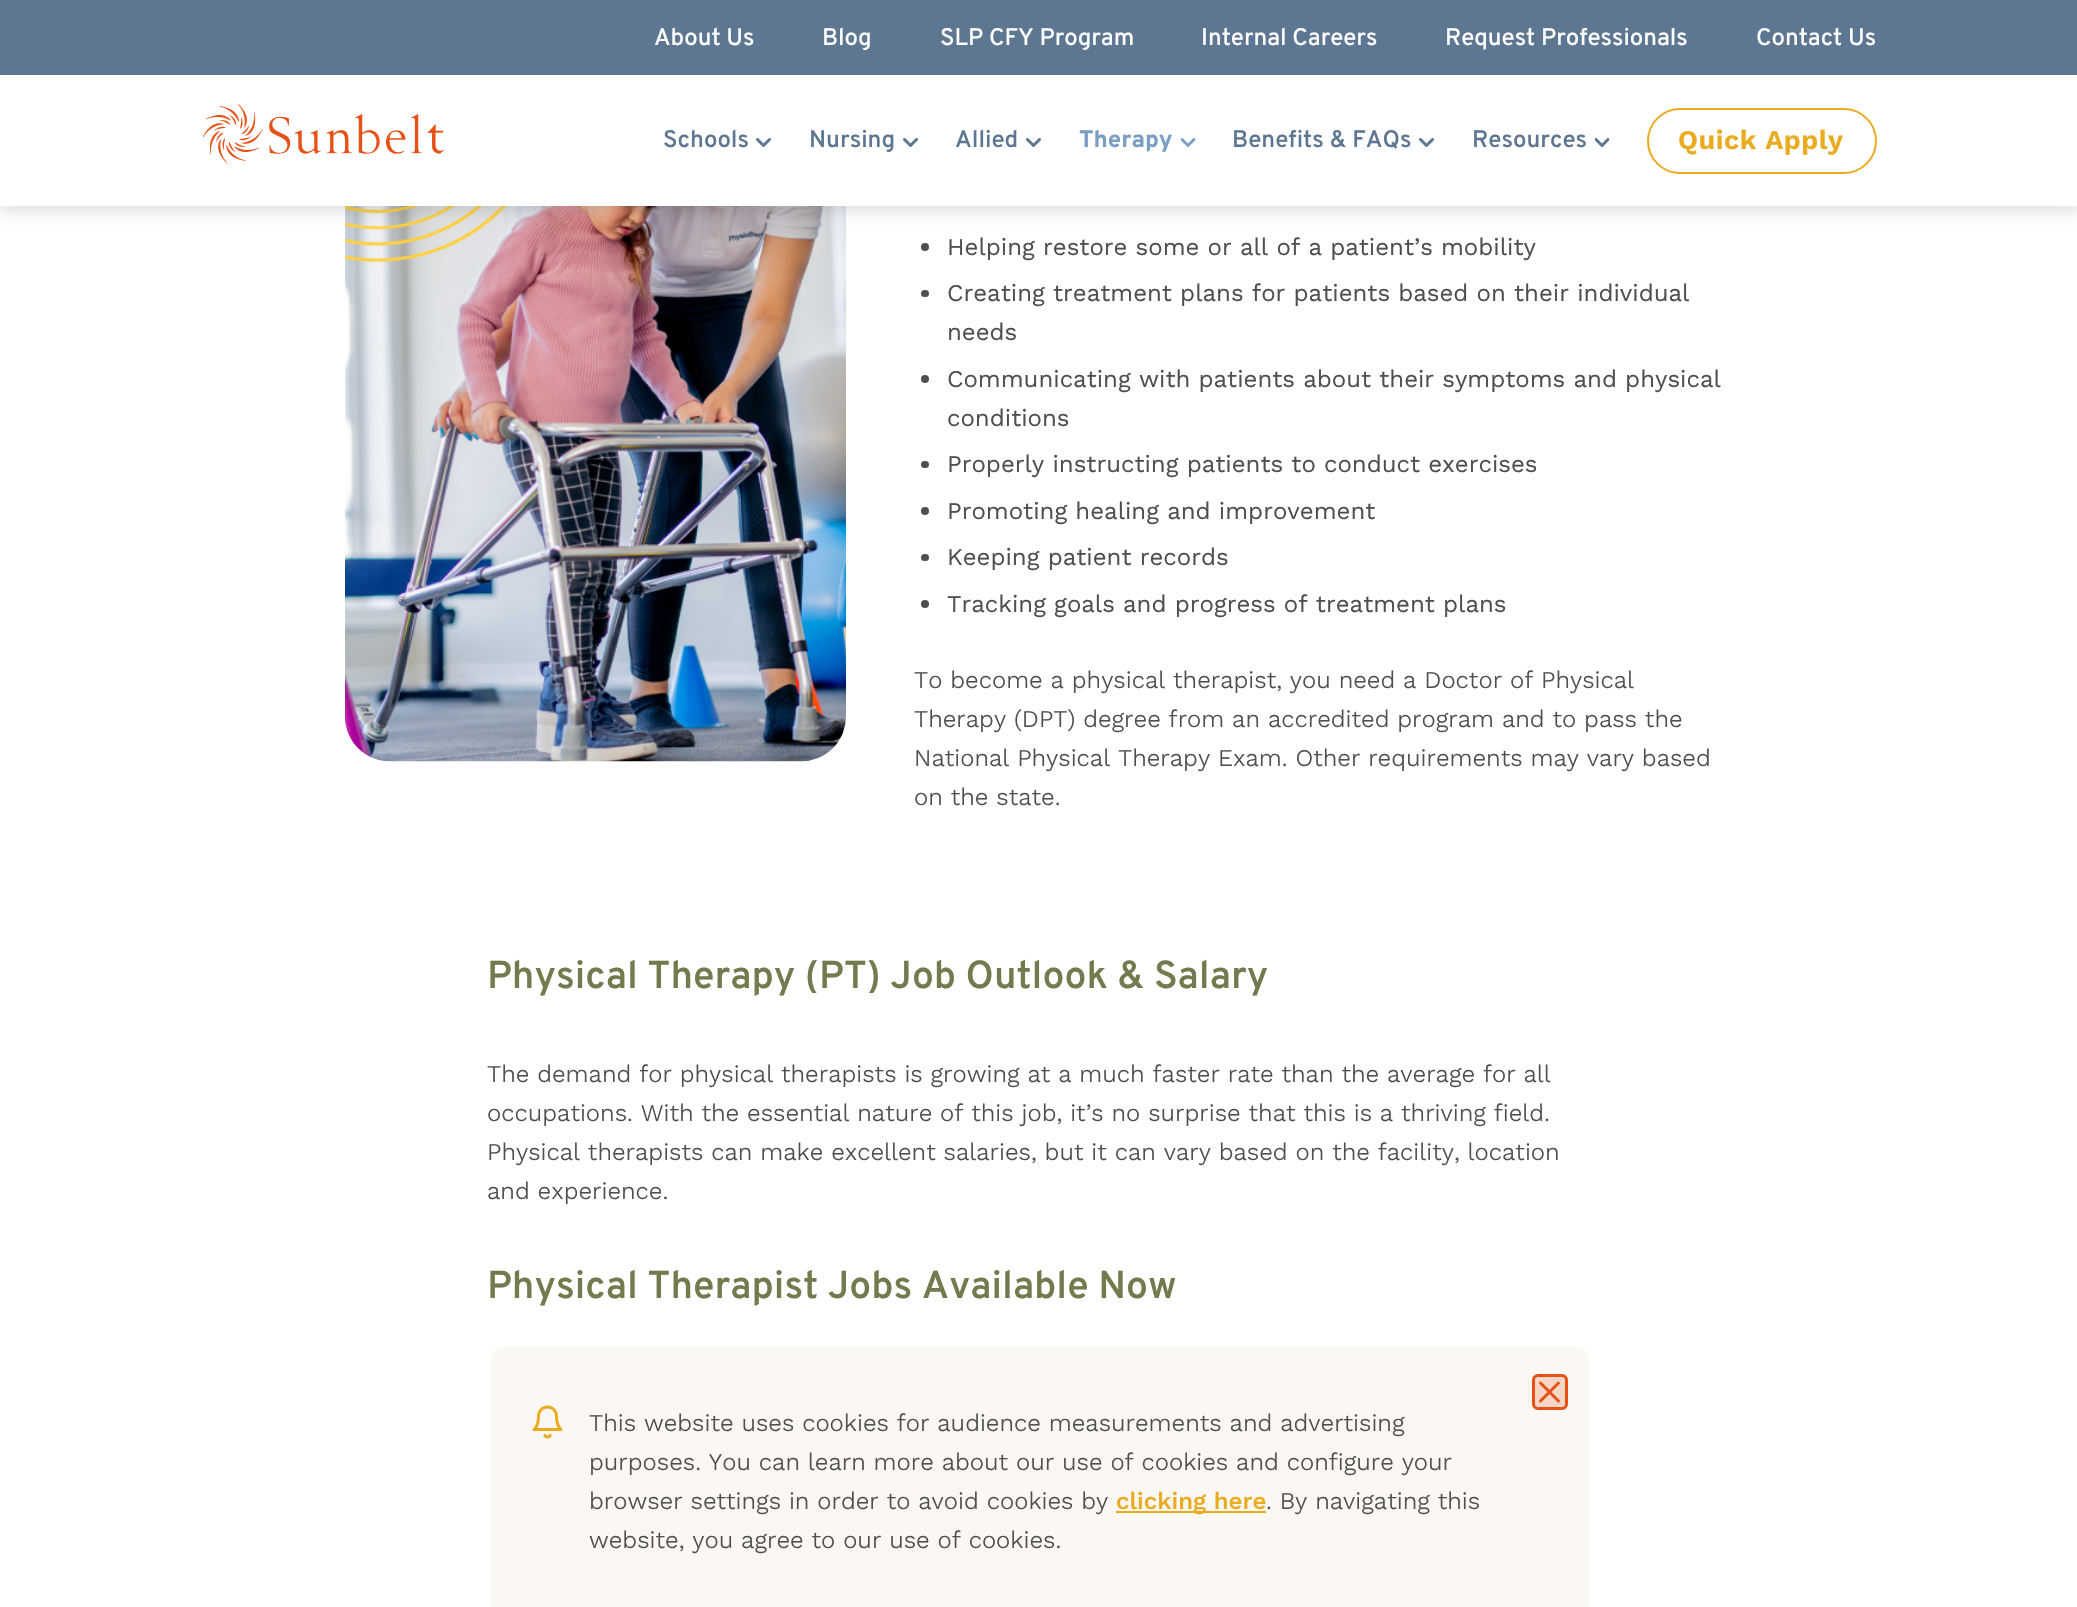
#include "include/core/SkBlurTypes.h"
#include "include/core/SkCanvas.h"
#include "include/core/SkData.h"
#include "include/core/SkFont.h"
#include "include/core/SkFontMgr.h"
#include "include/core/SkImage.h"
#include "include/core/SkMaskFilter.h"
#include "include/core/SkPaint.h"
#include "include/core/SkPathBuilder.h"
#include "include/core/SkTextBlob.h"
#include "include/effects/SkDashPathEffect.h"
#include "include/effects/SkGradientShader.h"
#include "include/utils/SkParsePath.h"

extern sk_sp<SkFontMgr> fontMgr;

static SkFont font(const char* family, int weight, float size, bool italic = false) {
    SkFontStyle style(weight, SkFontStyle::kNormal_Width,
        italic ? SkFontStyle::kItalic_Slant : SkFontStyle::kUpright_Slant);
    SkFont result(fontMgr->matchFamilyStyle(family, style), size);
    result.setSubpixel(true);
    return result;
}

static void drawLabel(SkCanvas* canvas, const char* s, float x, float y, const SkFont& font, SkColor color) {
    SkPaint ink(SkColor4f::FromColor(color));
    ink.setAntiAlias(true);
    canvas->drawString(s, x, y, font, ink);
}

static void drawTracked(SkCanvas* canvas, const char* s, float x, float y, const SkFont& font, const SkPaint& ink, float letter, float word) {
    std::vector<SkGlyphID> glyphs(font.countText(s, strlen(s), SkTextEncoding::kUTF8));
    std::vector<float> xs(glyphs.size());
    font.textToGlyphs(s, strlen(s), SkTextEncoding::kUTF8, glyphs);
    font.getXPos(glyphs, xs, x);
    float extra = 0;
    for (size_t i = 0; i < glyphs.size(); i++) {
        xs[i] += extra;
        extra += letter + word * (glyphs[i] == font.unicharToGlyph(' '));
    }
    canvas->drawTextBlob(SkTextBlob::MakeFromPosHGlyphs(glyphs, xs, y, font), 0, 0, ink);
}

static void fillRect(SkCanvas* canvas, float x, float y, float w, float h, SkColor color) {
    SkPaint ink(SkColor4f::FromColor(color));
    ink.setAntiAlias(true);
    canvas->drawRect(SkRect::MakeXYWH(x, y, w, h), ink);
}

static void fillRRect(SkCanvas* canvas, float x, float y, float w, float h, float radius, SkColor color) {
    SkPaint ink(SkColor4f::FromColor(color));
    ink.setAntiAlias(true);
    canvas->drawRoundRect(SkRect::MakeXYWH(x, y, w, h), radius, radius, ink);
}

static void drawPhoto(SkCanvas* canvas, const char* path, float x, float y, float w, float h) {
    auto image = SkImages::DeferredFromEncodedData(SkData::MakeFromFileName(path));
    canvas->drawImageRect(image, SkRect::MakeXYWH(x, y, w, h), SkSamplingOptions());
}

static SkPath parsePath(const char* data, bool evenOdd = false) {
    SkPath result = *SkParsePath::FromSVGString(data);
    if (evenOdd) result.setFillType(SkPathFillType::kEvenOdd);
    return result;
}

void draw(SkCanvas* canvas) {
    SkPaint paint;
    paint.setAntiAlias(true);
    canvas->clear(0xFFFFFFFF);
    fillRect(canvas, 0, 0, 2077, 75, 0xFF5D7692);
    SkFont font1 = font("Overpass", 500, 24);
    drawLabel(canvas, "About Us", 654, 45, font1, 0xFFFFFFFF);
    drawLabel(canvas, "Blog", 822, 45, font1, 0xFFFFFFFF);
    drawLabel(canvas, "SLP CFY Program", 940, 45, font1, 0xFFFFFFFF);
    drawLabel(canvas, "Internal Careers", 1201, 45, font1, 0xFFFFFFFF);
    drawLabel(canvas, "Request Professionals", 1445, 45, font1, 0xFFFFFFFF);
    drawLabel(canvas, "Contact Us", 1756, 45, font1, 0xFFFFFFFF);
    drawPhoto(canvas, "assets/img5.png", 345, 206, 501, 556);
    paint.setColor(0x1A000000);
    paint.setMaskFilter(SkMaskFilter::MakeBlur(kNormal_SkBlurStyle, 6));
    canvas->drawRect(SkRect::MakeXYWH(0, 83, 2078, 130), paint);
    paint.setMaskFilter(nullptr);
    fillRect(canvas, 0, 75, 2077, 131, 0xFFFFFFFF);
    drawPhoto(canvas, "assets/img1.png", 203, 104, 241, 60);
    SkFont font2 = font("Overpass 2", 500, 24);
    drawLabel(canvas, "Schools", 663, 147, font2, 0xFF5D7692);
    drawPhoto(canvas, "assets/img2.png", 756, 138, 15, 9);
    drawLabel(canvas, "Nursing", 809, 147, font2, 0xFF5D7692);
    drawPhoto(canvas, "assets/img2.png", 903, 138, 15, 9);
    drawLabel(canvas, "Allied", 955, 147, font2, 0xFF5D7692);
    drawPhoto(canvas, "assets/img2.png", 1026, 138, 15, 9);
    SkFont font3 = font("Overpass", 700, 24);
    drawLabel(canvas, "Therapy", 1079, 147, font3, 0xFF7B9FC3);
    drawPhoto(canvas, "assets/img3.png", 1181, 138, 15, 9);
    drawLabel(canvas, "Benefits & FAQs", 1232, 147, font2, 0xFF5D7692);
    drawPhoto(canvas, "assets/img2.png", 1419, 138, 15, 9);
    drawLabel(canvas, "Resources", 1472, 147, font2, 0xFF5D7692);
    drawPhoto(canvas, "assets/img4.png", 1595, 138, 15, 9);
    paint.setStroke(true);
    paint.setStrokeWidth(2);
    paint.setColor(0xFFEBAB21);
    canvas->drawRoundRect(SkRect::MakeXYWH(1648, 109, 228, 64), 32, 32, paint);
    SkFont font4 = font("Work Sans", 600, 27);
    paint.setStroke(false);
    drawTracked(canvas, "Quick Apply", 1678, 149, font4, paint, 0.5f, 0);
    paint.setColor(0xFF4F4F4F);
    canvas->drawCircle(925, 247, 4, paint);
    SkFont font5 = font("Work Sans", 400, 24);
    drawLabel(canvas, "Helping restore some or all of a patient’s mobility", 947, 255, font5, 0xFF4F4F4F);
    fillRRect(canvas, 921, 290, 8, 7, 3.5f, 0xFF4F4F4F);
    drawLabel(canvas, "Creating treatment plans for patients based on their individual", 947, 301, font5, 0xFF4F4F4F);
    drawLabel(canvas, "needs", 947, 340, font5, 0xFF4F4F4F);
    canvas->drawCircle(925, 379, 4, paint);
    drawLabel(canvas, "Communicating with patients about their symptoms and physical", 947, 387, font5, 0xFF4F4F4F);
    drawLabel(canvas, "conditions", 947, 426, font5, 0xFF4F4F4F);
    fillRRect(canvas, 921, 461, 8, 7, 3.5f, 0xFF4F4F4F);
    drawLabel(canvas, "Properly instructing patients to conduct exercises", 947, 472, font5, 0xFF4F4F4F);
    canvas->drawCircle(925, 511, 4, paint);
    drawLabel(canvas, "Promoting healing and improvement", 947, 519, font5, 0xFF4F4F4F);
    fillRRect(canvas, 921, 554, 8, 7, 3.5f, 0xFF4F4F4F);
    drawLabel(canvas, "Keeping patient records", 947, 565, font5, 0xFF4F4F4F);
    canvas->drawCircle(925, 604, 4, paint);
    drawLabel(canvas, "Tracking goals and progress of treatment plans", 947, 612, font5, 0xFF4F4F4F);
    SkFont font6 = font("Work Sans", 300, 24);
    drawLabel(canvas, "To become a physical therapist, you need a Doctor of Physical", 914, 688, font6, 0xFF4F4F4F);
    drawLabel(canvas, "Therapy (DPT) degree from an accredited program and to pass the", 914, 727, font6, 0xFF4F4F4F);
    drawLabel(canvas, "National Physical Therapy Exam. Other requirements may vary based", 914, 766, font6, 0xFF4F4F4F);
    drawLabel(canvas, "on the state.", 914, 805, font6, 0xFF4F4F4F);
    SkFont font7 = font("Overpass", 600, 39);
    drawLabel(canvas, "Physical Therapy (PT) Job Outlook & Salary", 487, 988, font7, 0xFF747A4D);
    drawLabel(canvas, "The demand for physical therapists is growing at a much faster rate than the average for all", 487, 1082, font6, 0xFF4F4F4F);
    drawLabel(canvas, "occupations. With the essential nature of this job, it’s no surprise that this is a thriving field.", 487, 1121, font6, 0xFF4F4F4F);
    drawLabel(canvas, "Physical therapists can make excellent salaries, but it can vary based on the facility, location", 487, 1160, font6, 0xFF4F4F4F);
    drawLabel(canvas, "and experience.", 487, 1199, font6, 0xFF4F4F4F);
    drawLabel(canvas, "Physical Therapist Jobs Available Now", 487, 1298, font7, 0xFF747A4D);
    paint.setColor(0xFFFBF7F2);
    canvas->drawPath(parsePath("M503 1347H1577C1583.5 1347 1589 1352.5 1589 1359V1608H491V1359C491 1352.5 496.5 1347 503 1347Z"), paint);
    paint.setColor(0xFFF7D6C6);
    canvas->drawRoundRect(SkRect::MakeXYWH(1533.5f, 1375.5f, 33, 33), 4.5f, 4.5f, paint);
    paint.setStroke(true);
    paint.setStrokeWidth(3);
    paint.setColor(0xFFE85116);
    canvas->drawRoundRect(SkRect::MakeXYWH(1533.5f, 1375.5f, 33, 33), 4.5f, 4.5f, paint);
    paint.setStrokeCap(SkPaint::kRound_Cap);
    paint.setStrokeJoin(SkPaint::kRound_Join);
    canvas->drawPath(parsePath("M1558.5 1383L1540.5 1401M1540.5 1383L1558.5 1401"), paint);
    drawPhoto(canvas, "assets/img6.png", 532, 1405, 31, 34);
    drawLabel(canvas, "This website uses cookies for audience measurements and advertising", 589, 1431, font6, 0xFF4F4F4F);
    drawLabel(canvas, "purposes. You can learn more about our use of cookies and configure your", 589, 1470, font6, 0xFF4F4F4F);
    drawLabel(canvas, "browser settings in order to avoid cookies by", 589, 1509, font6, 0xFF4F4F4F);
    fillRect(canvas, 1116, 1511, 150, 2, 0xFFEBAB21);
    SkFont font8 = font("Work Sans", 500, 24);
    drawLabel(canvas, "clicking here", 1116, 1509, font8, 0xFFEBAB21);
    drawLabel(canvas, ". By navigating this", 1266, 1509, font6, 0xFF4F4F4F);
    drawLabel(canvas, "website, you agree to our use of cookies.", 589, 1548, font6, 0xFF4F4F4F);
}
